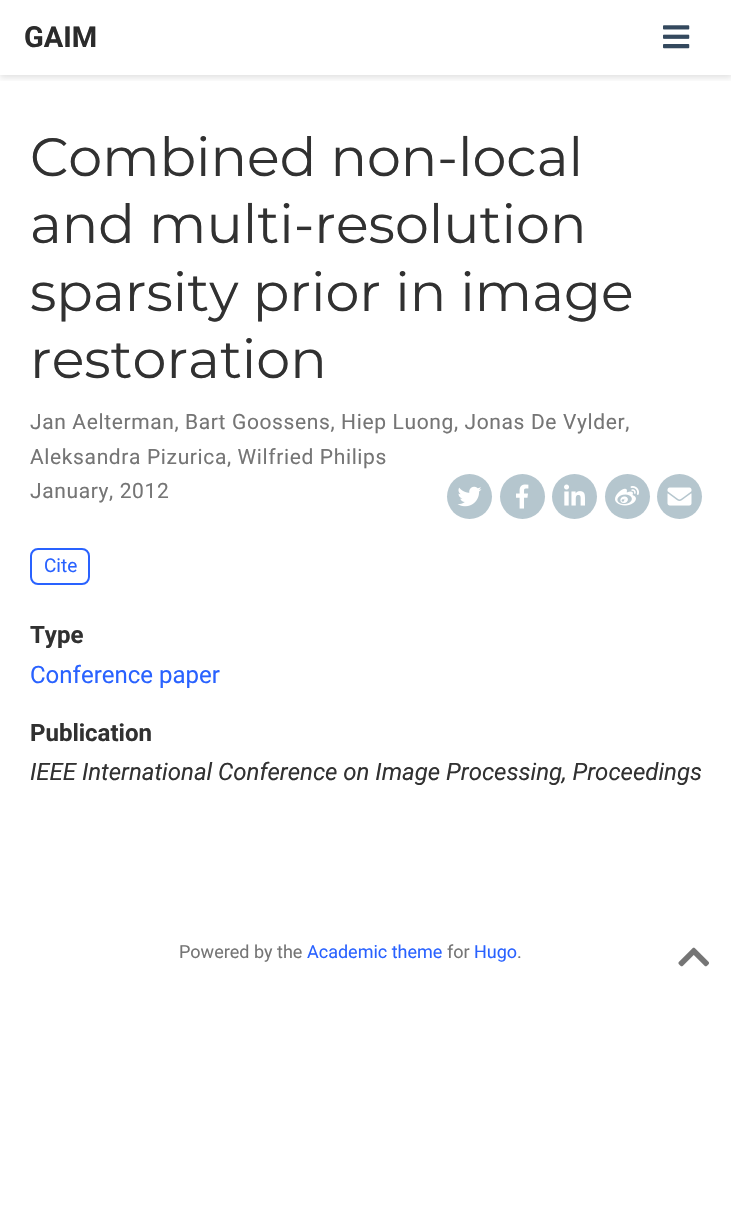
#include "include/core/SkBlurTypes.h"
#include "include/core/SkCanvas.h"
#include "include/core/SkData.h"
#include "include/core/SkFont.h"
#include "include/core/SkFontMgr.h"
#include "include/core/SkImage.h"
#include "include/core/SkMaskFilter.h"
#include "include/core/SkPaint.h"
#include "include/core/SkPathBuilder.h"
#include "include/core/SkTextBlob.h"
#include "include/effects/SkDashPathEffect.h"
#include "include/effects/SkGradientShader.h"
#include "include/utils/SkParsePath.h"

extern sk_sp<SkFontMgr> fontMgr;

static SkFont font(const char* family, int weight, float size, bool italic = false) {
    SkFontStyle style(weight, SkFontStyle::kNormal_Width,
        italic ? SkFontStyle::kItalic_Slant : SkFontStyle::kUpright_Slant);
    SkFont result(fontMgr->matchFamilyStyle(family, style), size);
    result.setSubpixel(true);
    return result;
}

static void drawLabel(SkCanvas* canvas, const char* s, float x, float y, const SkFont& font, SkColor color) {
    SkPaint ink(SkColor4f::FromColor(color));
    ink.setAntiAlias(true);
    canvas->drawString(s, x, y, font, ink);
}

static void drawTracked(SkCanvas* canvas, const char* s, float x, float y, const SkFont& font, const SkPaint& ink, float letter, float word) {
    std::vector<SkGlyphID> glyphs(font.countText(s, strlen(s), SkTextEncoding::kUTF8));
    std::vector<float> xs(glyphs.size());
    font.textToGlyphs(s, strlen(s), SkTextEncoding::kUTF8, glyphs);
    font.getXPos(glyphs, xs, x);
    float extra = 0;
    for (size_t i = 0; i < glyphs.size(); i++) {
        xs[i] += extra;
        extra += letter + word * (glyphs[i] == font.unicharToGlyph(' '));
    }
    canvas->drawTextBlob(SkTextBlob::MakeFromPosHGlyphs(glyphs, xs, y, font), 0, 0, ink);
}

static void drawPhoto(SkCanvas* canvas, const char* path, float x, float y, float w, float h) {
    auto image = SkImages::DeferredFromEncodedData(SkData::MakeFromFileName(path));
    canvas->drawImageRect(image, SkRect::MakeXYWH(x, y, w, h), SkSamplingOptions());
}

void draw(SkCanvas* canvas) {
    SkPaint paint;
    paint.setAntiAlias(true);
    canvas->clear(0xFFFFFFFF);
    canvas->save();
    canvas->clipRect(SkRect::MakeXYWH(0, 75, 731, 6));
    paint.setColor(0x1C000000);
    paint.setMaskFilter(SkMaskFilter::MakeBlur(kNormal_SkBlurStyle, 3));
    canvas->drawRect(SkRect::MakeXYWH(0, 3, 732, 75), paint);
    paint.setMaskFilter(nullptr);
    canvas->restore();
    SkFont font1 = font("Roboto", 700, 29);
    drawLabel(canvas, "GAIM", 24, 47, font1, 0xFF2B2B2B);
    drawPhoto(canvas, "assets/img1.png", 663, 25, 27, 24);
    SkFont font2 = font("Montserrat", 400, 54);
    drawLabel(canvas, "Combined non-local", 30, 176, font2, 0xFF313131);
    drawLabel(canvas, "and multi-resolution", 30, 243, font2, 0xFF313131);
    drawLabel(canvas, "sparsity prior in image", 30, 311, font2, 0xFF313131);
    drawLabel(canvas, "restoration", 30, 378, font2, 0xFF313131);
    SkFont font3 = font("Roboto", 400, 21);
    paint.setColor(0xFF757575);
    drawTracked(canvas, "Jan Aelterman, Bart Goossens, Hiep Luong, Jonas De Vylder,", 30, 429, font3, paint, 0.63f, 0);
    drawTracked(canvas, "Aleksandra Pizurica, Wilfried Philips", 30, 464, font3, paint, 0.63f, 0);
    drawTracked(canvas, "January, 2012", 30, 498, font3, paint, 0.63f, 0);
    paint.setColor(0xFFB5C6CE);
    canvas->drawCircle(469.5f, 496.5f, 22.5f, paint);
    drawPhoto(canvas, "assets/img2.png", 457, 486, 25, 21);
    canvas->drawCircle(522.5f, 496.5f, 22.5f, paint);
    drawPhoto(canvas, "assets/img3.png", 516, 484, 13, 25);
    canvas->drawCircle(574.5f, 496.5f, 22.5f, paint);
    drawPhoto(canvas, "assets/img4.png", 564, 484, 21, 22);
    canvas->drawCircle(627.5f, 496.5f, 22.5f, paint);
    drawPhoto(canvas, "assets/img5.png", 615, 486, 24, 20);
    canvas->drawCircle(679.5f, 496.5f, 22.5f, paint);
    drawPhoto(canvas, "assets/img6.png", 667, 487, 25, 19);
    paint.setStroke(true);
    paint.setStrokeWidth(2);
    paint.setColor(0xFF2962FF);
    canvas->drawRoundRect(SkRect::MakeXYWH(31, 549, 58, 35), 7, 7, paint);
    SkFont font4 = font("Roboto", 400, 19);
    drawLabel(canvas, "Cite", 44, 572, font4, 0xFF2962FF);
    SkFont font5 = font("Roboto", 700, 24);
    drawLabel(canvas, "Type", 30, 643, font5, 0xFF313131);
    SkFont font6 = font("Roboto", 400, 24);
    drawLabel(canvas, "Conference paper", 30, 683, font6, 0xFF2962FF);
    drawLabel(canvas, "Publication", 30, 741, font5, 0xFF313131);
    SkFont font7 = font("Roboto", 400, 24, true);
    drawLabel(canvas, "IEEE International Conference on Image Processing, Proceedings", 30, 780, font7, 0xFF313131);
    SkFont font8 = font("Roboto", 400, 18);
    drawLabel(canvas, "Powered by the", 179, 958, font8, 0xFF757575);
    drawLabel(canvas, "Academic theme", 307, 958, font8, 0xFF2962FF);
    drawLabel(canvas, "for", 447, 958, font8, 0xFF757575);
    drawLabel(canvas, "Hugo", 474, 958, font8, 0xFF2962FF);
    drawLabel(canvas, ".", 517, 958, font8, 0xFF757575);
    drawPhoto(canvas, "assets/img7.png", 678, 947, 31, 20);
}
